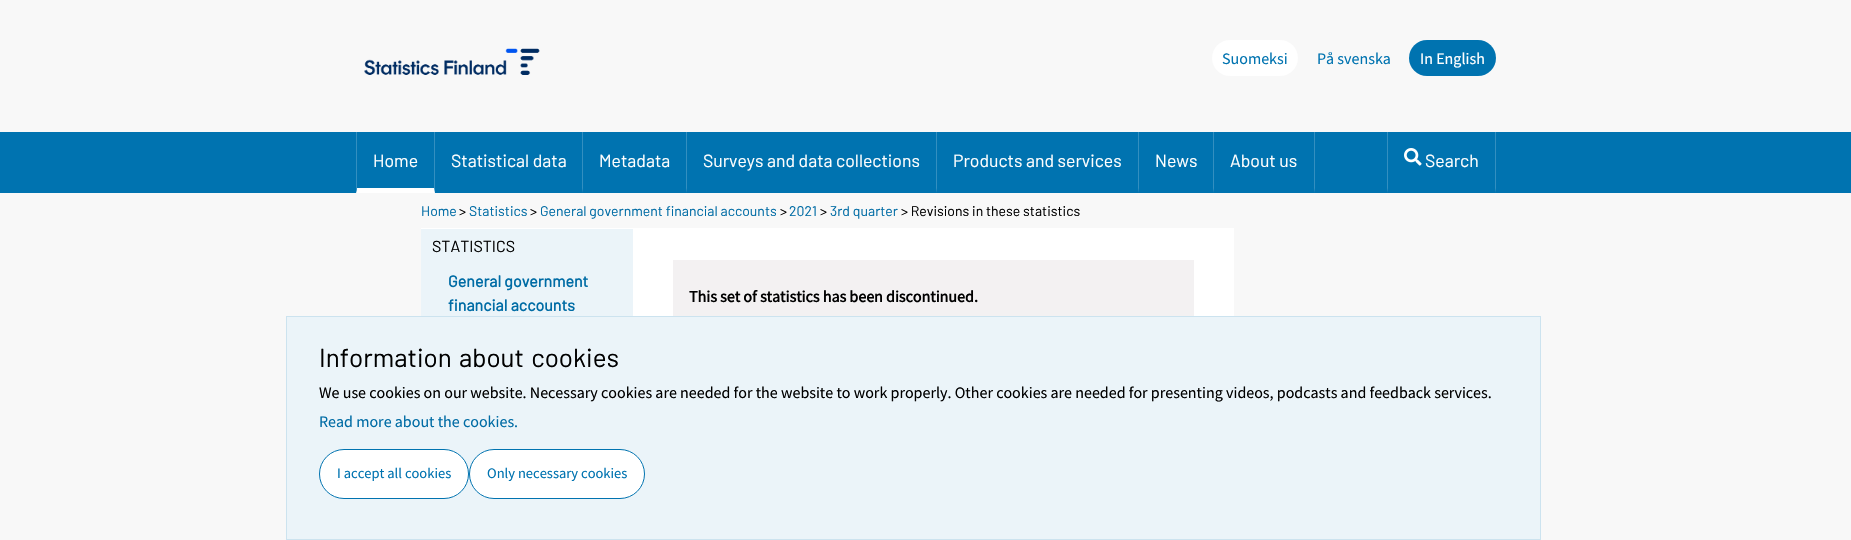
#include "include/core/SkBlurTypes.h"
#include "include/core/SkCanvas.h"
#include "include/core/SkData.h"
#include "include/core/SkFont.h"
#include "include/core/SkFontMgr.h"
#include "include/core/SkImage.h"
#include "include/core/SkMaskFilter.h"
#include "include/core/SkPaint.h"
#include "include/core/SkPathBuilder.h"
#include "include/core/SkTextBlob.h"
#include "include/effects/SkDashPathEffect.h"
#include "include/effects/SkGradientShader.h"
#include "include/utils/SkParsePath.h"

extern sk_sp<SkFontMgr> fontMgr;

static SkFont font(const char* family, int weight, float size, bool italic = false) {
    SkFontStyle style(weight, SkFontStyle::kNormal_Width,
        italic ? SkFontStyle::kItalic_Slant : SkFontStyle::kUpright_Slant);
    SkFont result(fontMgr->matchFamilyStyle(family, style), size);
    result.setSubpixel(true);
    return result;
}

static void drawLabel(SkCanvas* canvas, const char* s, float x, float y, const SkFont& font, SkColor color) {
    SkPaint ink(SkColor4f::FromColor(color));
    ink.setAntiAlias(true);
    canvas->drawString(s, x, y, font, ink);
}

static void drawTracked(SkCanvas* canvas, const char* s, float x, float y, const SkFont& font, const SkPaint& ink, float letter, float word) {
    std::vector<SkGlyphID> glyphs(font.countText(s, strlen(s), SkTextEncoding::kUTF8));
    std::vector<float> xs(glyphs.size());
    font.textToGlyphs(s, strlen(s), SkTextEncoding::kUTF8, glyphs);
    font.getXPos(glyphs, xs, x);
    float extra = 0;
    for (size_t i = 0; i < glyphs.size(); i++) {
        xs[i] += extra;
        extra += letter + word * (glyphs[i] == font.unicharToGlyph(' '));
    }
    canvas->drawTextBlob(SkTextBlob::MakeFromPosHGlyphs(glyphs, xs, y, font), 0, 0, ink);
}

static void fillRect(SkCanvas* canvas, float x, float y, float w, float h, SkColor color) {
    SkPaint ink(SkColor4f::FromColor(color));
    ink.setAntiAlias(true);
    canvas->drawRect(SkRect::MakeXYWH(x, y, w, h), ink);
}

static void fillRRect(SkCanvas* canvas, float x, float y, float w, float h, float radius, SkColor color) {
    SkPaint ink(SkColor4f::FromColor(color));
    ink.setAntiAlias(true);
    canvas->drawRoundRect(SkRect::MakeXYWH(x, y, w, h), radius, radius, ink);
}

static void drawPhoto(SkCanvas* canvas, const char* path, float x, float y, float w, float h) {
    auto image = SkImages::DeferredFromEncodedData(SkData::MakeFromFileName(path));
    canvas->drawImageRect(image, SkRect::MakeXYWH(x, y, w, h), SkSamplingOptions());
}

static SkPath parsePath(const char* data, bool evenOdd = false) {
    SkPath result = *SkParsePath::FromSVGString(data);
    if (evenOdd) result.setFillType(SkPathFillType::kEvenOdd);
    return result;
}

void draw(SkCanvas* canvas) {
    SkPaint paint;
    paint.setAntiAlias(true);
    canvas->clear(0xFFF8F8F8);
    drawPhoto(canvas, "assets/img1.png", 364, 48, 176, 27);
    fillRRect(canvas, 1212, 40, 86, 36, 18, 0xFFFFFFFF);
    SkFont font1 = font("Source Sans Pro", 400, 16);
    drawLabel(canvas, "Suomeksi", 1222, 64, font1, 0xFF0073B0);
    drawLabel(canvas, "På svenska", 1317, 64, font1, 0xFF0073B0);
    fillRRect(canvas, 1409, 40, 87, 36, 18, 0xFF0073B0);
    drawLabel(canvas, "In English", 1420, 64, font1, 0xFFFFFFFF);
    fillRect(canvas, 0, 132, 1851, 61, 0xFF0073B0);
    paint.setColor(0xFF338FC0);
    canvas->drawPath(parsePath("M435 132V193L434 188V132Z"), paint);
    paint.setColor(0xFFFFFFFF);
    canvas->drawPath(parsePath("M435 193H356L357 188H434Z"), paint);
    paint.setColor(0xFF338FC0);
    canvas->drawPath(parsePath("M356 193V132H357V188Z"), paint);
    SkFont font2 = font("Barlow", 400, 17.6f);
    drawLabel(canvas, "Home", 373, 167, font2, 0xFFFFFFFF);
    canvas->drawPath(parsePath("M583 132V193L582 188V132Z"), paint);
    drawLabel(canvas, "Statistical data", 451, 167, font2, 0xFFFFFFFF);
    canvas->drawPath(parsePath("M687 132V193L686 188V132Z"), paint);
    drawLabel(canvas, "Metadata", 599, 167, font2, 0xFFFFFFFF);
    canvas->drawPath(parsePath("M937 132V193L936 188V132Z"), paint);
    drawLabel(canvas, "Surveys and data collections", 703, 167, font2, 0xFFFFFFFF);
    canvas->drawPath(parsePath("M1139 132V193L1138 188V132Z"), paint);
    drawLabel(canvas, "Products and services", 953, 167, font2, 0xFFFFFFFF);
    canvas->drawPath(parsePath("M1214 132V193L1213 188V132Z"), paint);
    drawLabel(canvas, "News", 1155, 167, font2, 0xFFFFFFFF);
    canvas->drawPath(parsePath("M1315 132V193L1314 188V132Z"), paint);
    drawLabel(canvas, "About us", 1230, 167, font2, 0xFFFFFFFF);
    canvas->drawPath(parsePath("M1496 132V193L1495 188V132Z"), paint);
    canvas->drawPath(parsePath("M1387 193V132H1388V188Z"), paint);
    drawPhoto(canvas, "assets/img2.png", 1404, 148, 18, 18);
    drawLabel(canvas, "Search", 1425, 167, font2, 0xFFFFFFFF);
    SkFont font3 = font("Barlow", 400, 14);
    drawLabel(canvas, "Home", 421, 216, font3, 0xFF006CA5);
    drawLabel(canvas, ">", 459, 216, font3, 0xFF000000);
    drawLabel(canvas, "Statistics", 469, 216, font3, 0xFF006CA5);
    drawLabel(canvas, ">", 530, 216, font3, 0xFF000000);
    drawLabel(canvas, "General government financial accounts", 540, 216, font3, 0xFF006CA5);
    drawLabel(canvas, ">", 780, 216, font3, 0xFF000000);
    drawLabel(canvas, "2021", 789, 216, font3, 0xFF006CA5);
    drawLabel(canvas, ">", 820, 216, font3, 0xFF000000);
    drawLabel(canvas, "3rd quarter", 830, 216, font3, 0xFF006CA5);
    drawLabel(canvas, "> Revisions in these statistics", 901, 216, font3, 0xFF000000);
    fillRect(canvas, 421, 229, 212, 87, 0xFFEBF4F9);
    fillRect(canvas, 421, 228, 212, 1, 0xFFFFFFFF);
    SkFont font4 = font("Barlow", 400, 16);
    drawLabel(canvas, "STATISTICS", 432, 252, font4, 0xFF000000);
    SkFont font5 = font("Barlow", 700, 16);
    drawLabel(canvas, "General government", 448, 287, font5, 0xFF006CA5);
    drawLabel(canvas, "financial accounts", 448, 311, font5, 0xFF006CA5);
    fillRect(canvas, 633, 228, 601, 88, 0xFFFFFFFF);
    fillRect(canvas, 673, 260, 521, 56, 0xFFF3F1F2);
    SkFont font6 = font("Source Sans Pro", 700, 16);
    drawLabel(canvas, "This set of statistics has been discontinued.", 689, 302, font6, 0xFF000000);
    paint.setColor(0xFFEBF4F9);
    canvas->drawRect(SkRect::MakeXYWH(286.5f, 316.5f, 1254, 223), paint);
    paint.setStroke(true);
    paint.setStrokeWidth(1);
    paint.setColor(0xFFCCE3EF);
    canvas->drawRect(SkRect::MakeXYWH(286.5f, 316.5f, 1254, 223), paint);
    SkFont font7 = font("Barlow", 400, 26);
    paint.setStroke(false);
    paint.setColor(0xFF000000);
    drawTracked(canvas, "Information about cookies", 319, 367, font7, paint, 0, 2);
    drawLabel(canvas, "We use cookies on our website. Necessary cookies are needed for the website to work properly. Other cookies are needed for presenting videos, podcasts and feedback services.", 319, 398, font1, 0xFF000000);
    drawLabel(canvas, "Read more about the cookies.", 319, 427, font1, 0xFF006CA5);
    paint.setColor(0xFFFFFFFF);
    canvas->drawRoundRect(SkRect::MakeXYWH(319.5f, 449.5f, 149, 49), 24.5f, 24.5f, paint);
    paint.setStroke(true);
    paint.setColor(0xFF0073B0);
    canvas->drawRoundRect(SkRect::MakeXYWH(319.5f, 449.5f, 149, 49), 24.5f, 24.5f, paint);
    SkFont font8 = font("Source Sans Pro", 400, 14.5f);
    drawLabel(canvas, "I accept all cookies", 337, 478, font8, 0xFF0073B0);
    paint.setStroke(false);
    paint.setColor(0xFFFFFFFF);
    canvas->drawRoundRect(SkRect::MakeXYWH(469.5f, 449.5f, 175, 49), 24.5f, 24.5f, paint);
    paint.setStroke(true);
    paint.setColor(0xFF0073B0);
    canvas->drawRoundRect(SkRect::MakeXYWH(469.5f, 449.5f, 175, 49), 24.5f, 24.5f, paint);
    drawLabel(canvas, "Only necessary cookies", 487, 478, font8, 0xFF0073B0);
}
